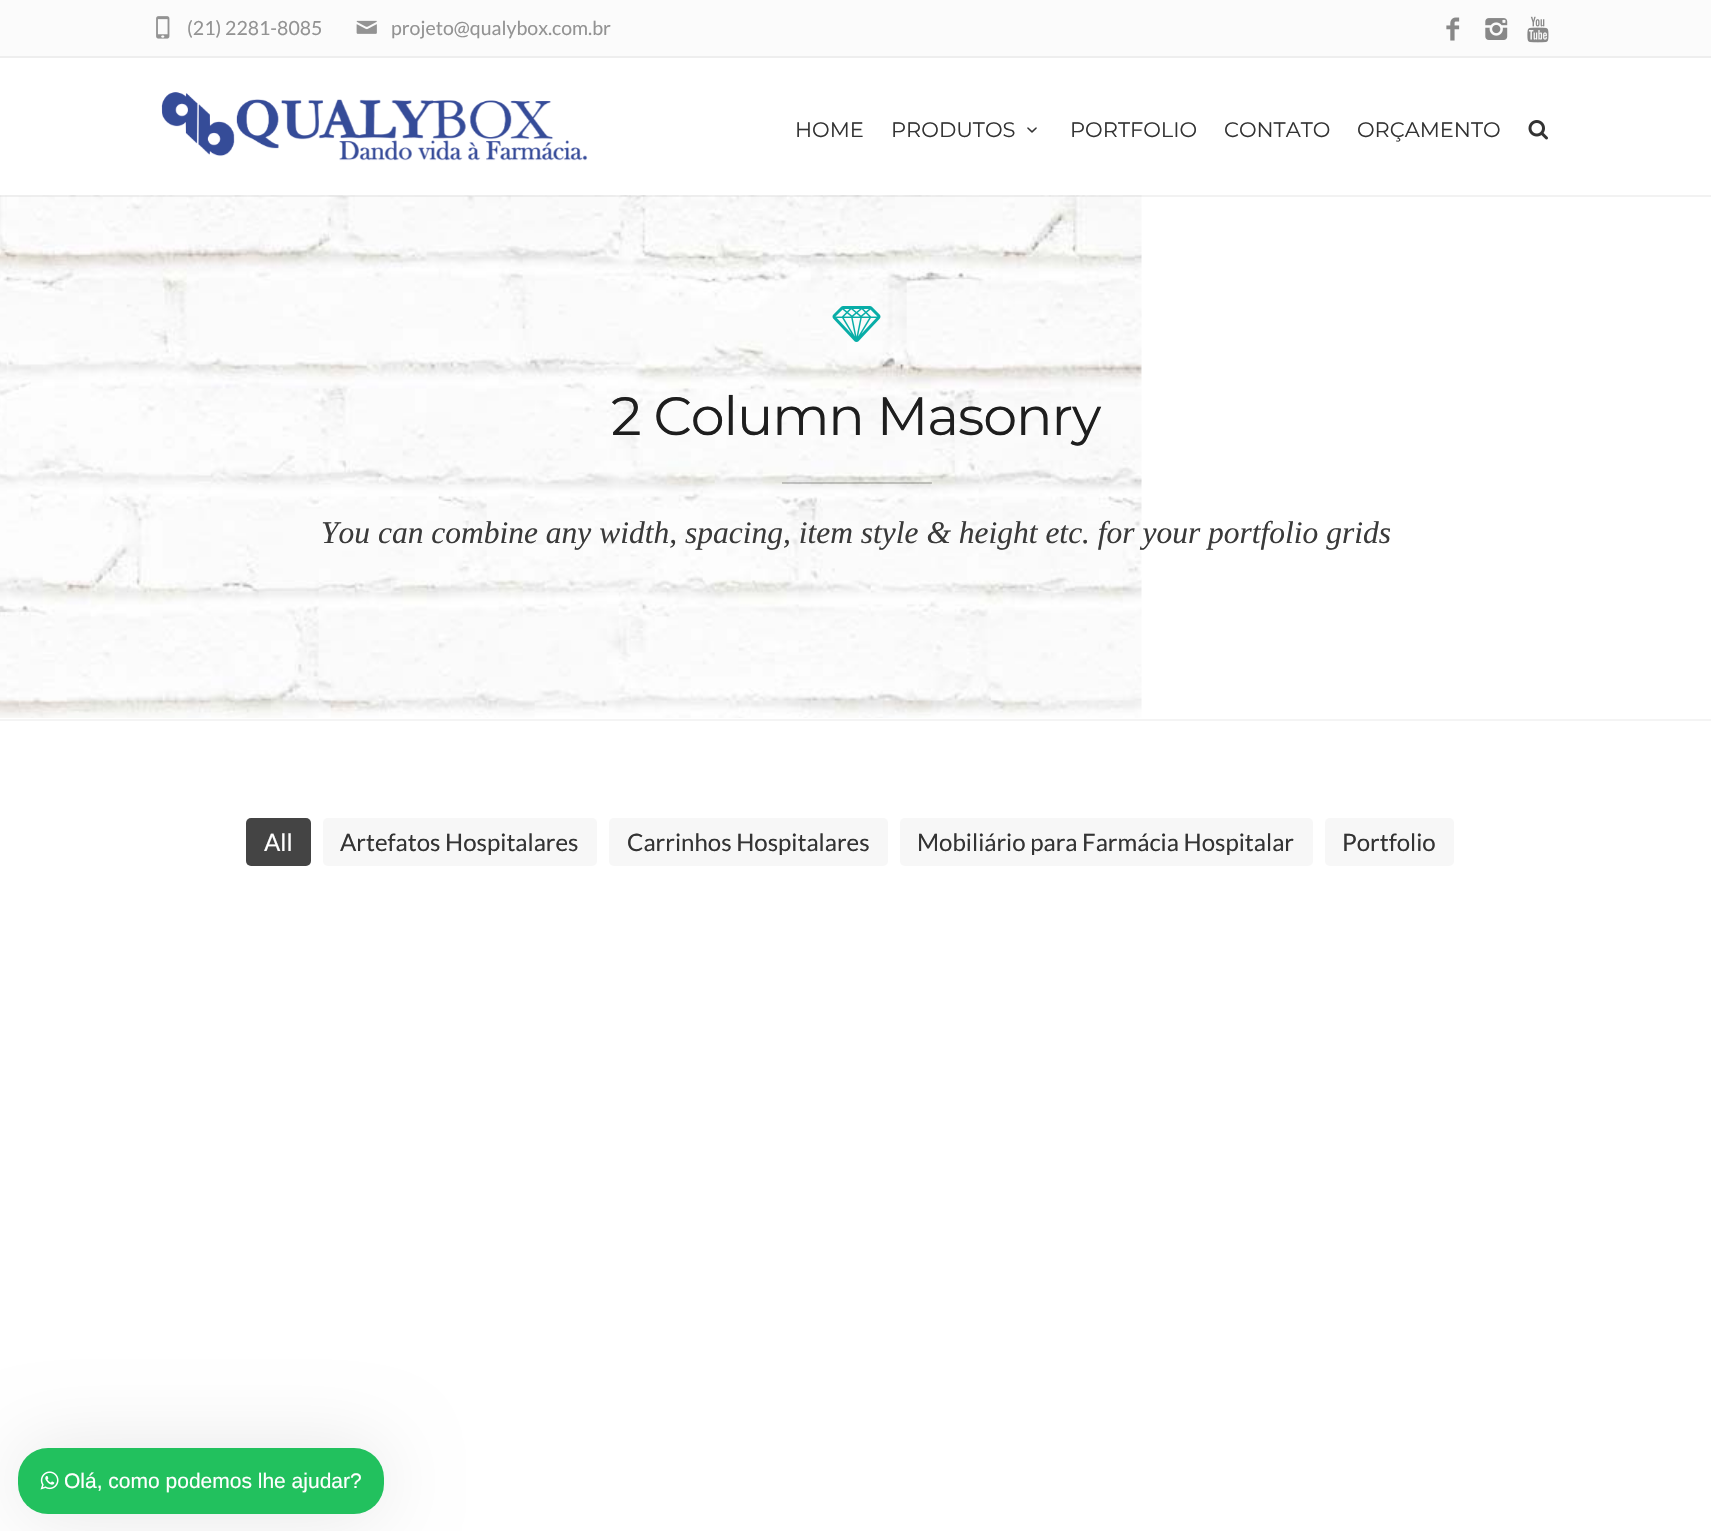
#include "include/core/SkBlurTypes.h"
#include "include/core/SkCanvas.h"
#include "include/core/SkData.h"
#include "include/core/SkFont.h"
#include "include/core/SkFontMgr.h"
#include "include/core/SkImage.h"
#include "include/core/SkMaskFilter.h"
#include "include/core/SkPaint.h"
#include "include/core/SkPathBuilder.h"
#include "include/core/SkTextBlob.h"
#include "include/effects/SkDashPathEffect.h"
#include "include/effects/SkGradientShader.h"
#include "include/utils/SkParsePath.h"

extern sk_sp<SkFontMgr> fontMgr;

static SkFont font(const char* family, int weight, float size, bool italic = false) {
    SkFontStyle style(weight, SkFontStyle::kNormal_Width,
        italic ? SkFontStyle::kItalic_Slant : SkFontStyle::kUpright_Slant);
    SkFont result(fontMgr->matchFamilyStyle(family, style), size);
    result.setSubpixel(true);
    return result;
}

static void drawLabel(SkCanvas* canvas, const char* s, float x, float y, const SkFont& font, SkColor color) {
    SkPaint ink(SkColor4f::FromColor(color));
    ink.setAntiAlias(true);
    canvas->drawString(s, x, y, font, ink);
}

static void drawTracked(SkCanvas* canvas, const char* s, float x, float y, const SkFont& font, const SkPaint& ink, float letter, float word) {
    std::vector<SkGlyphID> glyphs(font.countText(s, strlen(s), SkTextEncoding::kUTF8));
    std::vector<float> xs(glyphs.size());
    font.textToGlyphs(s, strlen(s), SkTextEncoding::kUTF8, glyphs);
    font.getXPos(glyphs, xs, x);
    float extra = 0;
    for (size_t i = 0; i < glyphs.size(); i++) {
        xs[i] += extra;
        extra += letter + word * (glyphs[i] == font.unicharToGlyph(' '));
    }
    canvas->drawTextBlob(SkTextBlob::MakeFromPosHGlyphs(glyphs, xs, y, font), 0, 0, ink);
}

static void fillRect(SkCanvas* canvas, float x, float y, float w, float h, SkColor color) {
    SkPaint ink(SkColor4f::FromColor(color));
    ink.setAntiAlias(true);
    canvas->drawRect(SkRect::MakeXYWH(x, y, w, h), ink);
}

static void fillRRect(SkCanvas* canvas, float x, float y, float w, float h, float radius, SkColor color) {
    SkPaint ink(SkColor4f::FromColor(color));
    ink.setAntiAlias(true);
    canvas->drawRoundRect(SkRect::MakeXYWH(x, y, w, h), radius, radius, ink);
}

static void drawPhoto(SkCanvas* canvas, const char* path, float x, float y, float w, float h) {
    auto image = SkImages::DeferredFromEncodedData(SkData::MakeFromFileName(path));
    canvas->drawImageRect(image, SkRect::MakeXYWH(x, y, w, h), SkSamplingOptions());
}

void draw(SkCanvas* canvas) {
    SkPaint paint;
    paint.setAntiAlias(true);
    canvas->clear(0xFFFFFFFF);
    drawPhoto(canvas, "assets/img9.png", 0, 195, 1142, 523);
    paint.setStroke(true);
    paint.setStrokeWidth(2);
    paint.setColor(0x0D000000);
    canvas->drawRect(SkRect::MakeXYWH(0, 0, 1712, 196), paint);
    fillRect(canvas, 0, 58, 1, 137, 0xFFFFFFFF);
    fillRect(canvas, 0, 0, 1711, 56, 0xFFFBFBFB);
    fillRect(canvas, 0, 56, 1711, 2, 0xFFEEEEEE);
    drawPhoto(canvas, "assets/img1.png", 156, 16, 14, 23);
    SkFont font1 = font("Lato", 400, 19.5f);
    drawLabel(canvas, "(21) 2281-8085", 187, 35, font1, 0xFF939393);
    drawPhoto(canvas, "assets/img2.png", 356, 20, 21, 14);
    drawLabel(canvas, "projeto@qualybox.com.br", 391, 35, font1, 0xFF939393);
    drawPhoto(canvas, "assets/img3.png", 1446, 17, 14, 24);
    drawPhoto(canvas, "assets/img4.png", 1485, 18, 23, 22);
    drawPhoto(canvas, "assets/img5.png", 1527, 16, 22, 27);
    drawPhoto(canvas, "assets/img6.png", 161, 92, 427, 69);
    SkFont font2 = font("Montserrat", 400, 21);
    drawLabel(canvas, "HOME", 795, 137, font2, 0xFF333333);
    drawLabel(canvas, "PRODUTOS", 891, 137, font2, 0xFF333333);
    drawPhoto(canvas, "assets/img7.png", 1027, 127, 10, 6);
    drawLabel(canvas, "PORTFOLIO", 1070, 137, font2, 0xFF333333);
    drawLabel(canvas, "CONTATO", 1224, 137, font2, 0xFF333333);
    drawLabel(canvas, "ORÇAMENTO", 1357, 137, font2, 0xFF333333);
    drawPhoto(canvas, "assets/img8.png", 1528, 120, 20, 20);
    fillRect(canvas, 0, 719, 1711, 2, 0xFFF4F4F4);
    drawPhoto(canvas, "assets/img10.png", 832, 306, 49, 36);
    SkFont font3 = font("Montserrat", 400, 54);
    paint.setStroke(false);
    paint.setColor(0xFF1E1E1E);
    drawTracked(canvas, "2 Column Masonry", 611, 435, font3, paint, -1.1f, 0);
    fillRect(canvas, 782, 482, 150, 2, 0x330A0A0A);
    SkFont font4 = font("Liberation Serif", 400, 31.5f, true);
    drawLabel(canvas, "You can combine any width, spacing, item style & height etc. for your portfolio grids", 321, 543, font4, 0xFF3A3A3A);
    fillRRect(canvas, 246, 818, 65, 48, 5, 0xFF444444);
    SkFont font5 = font("Lato", 400, 24);
    drawLabel(canvas, "All", 264, 851, font5, 0xFFFFFFFF);
    fillRRect(canvas, 323, 818, 274, 48, 5, 0xFFF7F7F7);
    drawLabel(canvas, "Artefatos Hospitalares", 340, 851, font5, 0xFF333333);
    fillRRect(canvas, 609, 818, 279, 48, 5, 0xFFF7F7F7);
    drawLabel(canvas, "Carrinhos Hospitalares", 627, 851, font5, 0xFF333333);
    fillRRect(canvas, 900, 818, 413, 48, 5, 0xFFF7F7F7);
    drawLabel(canvas, "Mobiliário para Farmácia Hospitalar", 917, 851, font5, 0xFF333333);
    fillRRect(canvas, 1325, 818, 129, 48, 5, 0xFFF7F7F7);
    drawLabel(canvas, "Portfolio", 1342, 851, font5, 0xFF333333);
    paint.setColor(0x1A000000);
    paint.setMaskFilter(SkMaskFilter::MakeBlur(kNormal_SkBlurStyle, 37.5f));
    canvas->drawRoundRect(SkRect::MakeXYWH(18, 1448, 366, 66), 30, 30, paint);
    paint.setMaskFilter(nullptr);
    fillRRect(canvas, 18, 1448, 366, 66, 30, 0xFF22C15E);
    drawPhoto(canvas, "assets/img11.png", 40, 1471, 19, 19);
    SkFont font6 = font("Liberation Sans", 400, 21);
    drawLabel(canvas, "Olá, como podemos lhe ajudar?", 64, 1488, font6, 0xFFFFFFFF);
}
